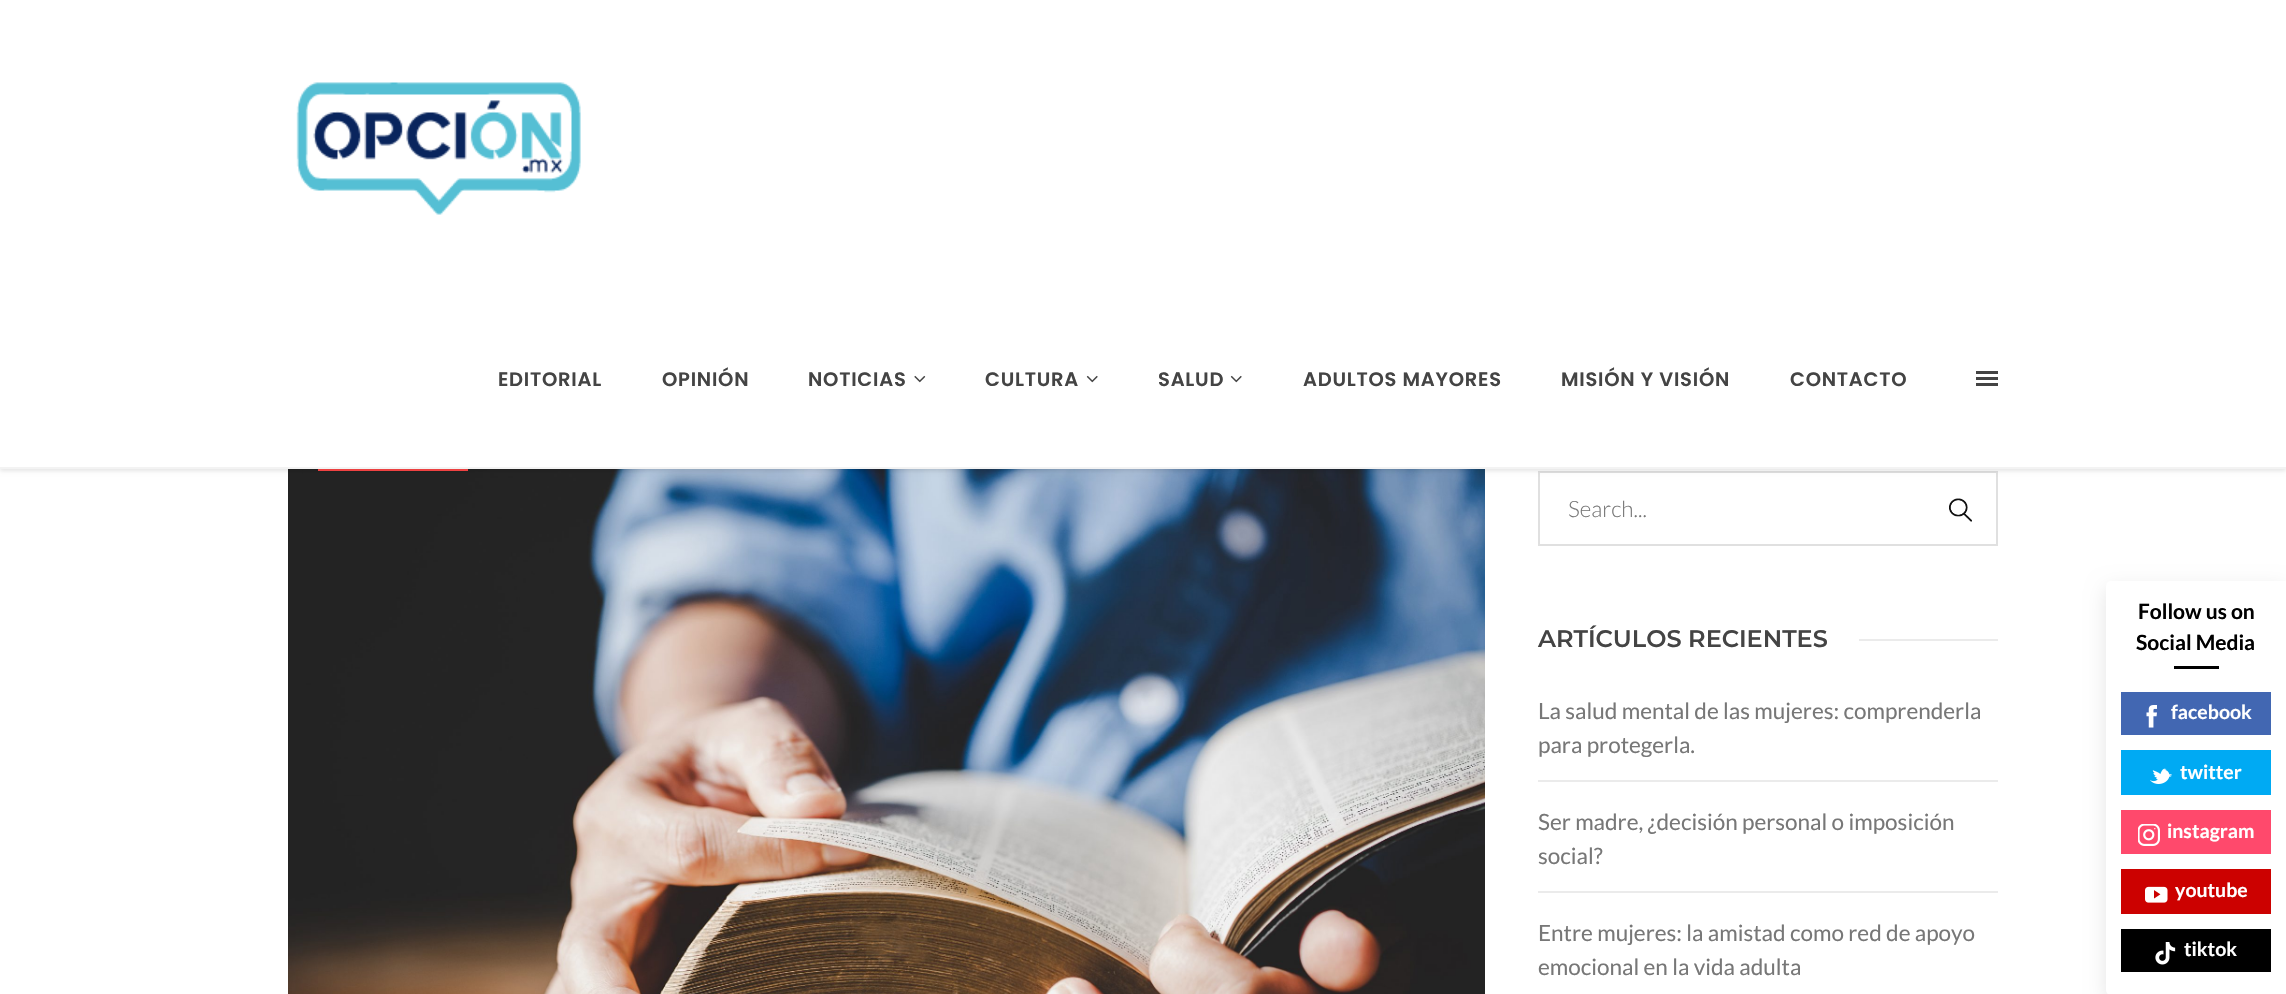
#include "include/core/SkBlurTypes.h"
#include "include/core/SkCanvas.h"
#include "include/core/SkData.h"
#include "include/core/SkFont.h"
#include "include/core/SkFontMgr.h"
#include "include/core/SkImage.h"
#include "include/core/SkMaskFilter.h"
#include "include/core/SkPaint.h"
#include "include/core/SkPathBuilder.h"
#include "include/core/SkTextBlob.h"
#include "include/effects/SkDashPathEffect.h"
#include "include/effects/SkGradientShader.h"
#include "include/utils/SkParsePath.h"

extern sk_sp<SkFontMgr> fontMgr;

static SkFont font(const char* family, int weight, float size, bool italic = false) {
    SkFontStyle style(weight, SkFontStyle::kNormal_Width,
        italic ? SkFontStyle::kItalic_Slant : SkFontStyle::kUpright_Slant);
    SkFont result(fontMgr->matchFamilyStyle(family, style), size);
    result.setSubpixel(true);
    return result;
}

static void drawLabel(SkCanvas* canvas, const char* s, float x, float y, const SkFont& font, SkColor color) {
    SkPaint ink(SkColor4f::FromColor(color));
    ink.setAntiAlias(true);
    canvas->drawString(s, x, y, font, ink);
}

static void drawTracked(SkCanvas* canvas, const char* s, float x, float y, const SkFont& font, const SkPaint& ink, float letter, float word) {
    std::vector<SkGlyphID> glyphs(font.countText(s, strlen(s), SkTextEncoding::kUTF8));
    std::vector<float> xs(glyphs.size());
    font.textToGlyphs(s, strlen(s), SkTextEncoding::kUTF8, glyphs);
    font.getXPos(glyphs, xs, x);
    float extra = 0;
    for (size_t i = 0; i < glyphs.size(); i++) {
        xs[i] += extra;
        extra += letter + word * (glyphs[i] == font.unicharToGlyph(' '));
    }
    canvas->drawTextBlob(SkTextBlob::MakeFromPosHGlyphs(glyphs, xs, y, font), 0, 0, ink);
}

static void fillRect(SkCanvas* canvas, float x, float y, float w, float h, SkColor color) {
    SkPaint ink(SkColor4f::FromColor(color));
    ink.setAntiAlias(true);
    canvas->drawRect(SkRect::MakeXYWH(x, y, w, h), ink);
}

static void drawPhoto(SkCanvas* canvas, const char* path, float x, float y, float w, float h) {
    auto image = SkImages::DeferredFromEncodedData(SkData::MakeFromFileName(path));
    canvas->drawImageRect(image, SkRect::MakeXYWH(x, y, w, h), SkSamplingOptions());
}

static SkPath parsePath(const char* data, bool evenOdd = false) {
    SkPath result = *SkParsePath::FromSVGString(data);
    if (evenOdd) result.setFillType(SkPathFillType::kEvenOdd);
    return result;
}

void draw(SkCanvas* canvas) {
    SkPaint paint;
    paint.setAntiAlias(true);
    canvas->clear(0xFFFFFFFF);
    drawPhoto(canvas, "assets/img4.png", 288, 469, 1197, 525);
    fillRect(canvas, 318, 469, 150, 2, 0xFFFF4646);
    paint.setStroke(true);
    paint.setStrokeWidth(2);
    paint.setColor(0xFFE0E0E0);
    canvas->drawRect(SkRect::MakeXYWH(1539, 472, 458, 73), paint);
    paint.setStroke(false);
    paint.setColor(0x1A000000);
    paint.setMaskFilter(SkMaskFilter::MakeBlur(kNormal_SkBlurStyle, 2));
    canvas->drawRect(SkRect::MakeXYWH(0, 3, 2286, 468), paint);
    paint.setMaskFilter(nullptr);
    fillRect(canvas, 0, 0, 2286, 467, 0xFFFFFFFF);
    fillRect(canvas, 0, 467, 2286, 2, 0xFFF3F3F3);
    drawPhoto(canvas, "assets/img1.png", 296, 82, 285, 133);
    SkFont font1 = font("Poppins", 600, 19.5f);
    paint.setColor(0xFF444444);
    drawTracked(canvas, "EDITORIAL", 498, 386, font1, paint, 0.75f, 0);
    drawTracked(canvas, "OPINIÓN", 662, 386, font1, paint, 0.75f, 0);
    drawTracked(canvas, "NOTICIAS", 808, 386, font1, paint, 0.75f, 0);
    drawPhoto(canvas, "assets/img2.png", 914, 375, 12, 8);
    drawTracked(canvas, "CULTURA", 985, 386, font1, paint, 0.75f, 0);
    drawPhoto(canvas, "assets/img3.png", 1086, 375, 12, 8);
    drawTracked(canvas, "SALUD", 1158, 386, font1, paint, 0.75f, 0);
    drawPhoto(canvas, "assets/img3.png", 1230, 375, 12, 8);
    drawTracked(canvas, "ADULTOS MAYORES", 1303, 386, font1, paint, 0.75f, 0);
    drawTracked(canvas, "MISIÓN Y VISIÓN", 1561, 386, font1, paint, 0.75f, 0);
    drawTracked(canvas, "CONTACTO", 1790, 386, font1, paint, 0.75f, 0);
    fillRect(canvas, 1976, 377, 22, 3, 0xFF444444);
    fillRect(canvas, 1976, 371, 22, 3, 0xFF444444);
    fillRect(canvas, 1976, 383, 22, 3, 0xFF444444);
    SkFont font2 = font("Lato", 300, 22.5f);
    drawLabel(canvas, "Search...", 1568, 517, font2, 0xFF777777);
    drawPhoto(canvas, "assets/img5.png", 1949, 498, 23, 24);
    SkFont font3 = font("Montserrat", 600, 24);
    drawLabel(canvas, "ARTÍCULOS RECIENTES", 1538, 647, font3, 0xFF444444);
    fillRect(canvas, 1859, 639, 139, 2, 0xFFEBEBEB);
    fillRect(canvas, 1538, 780, 460, 2, 0xFFEBEBEB);
    SkFont font4 = font("Lato", 400, 22.5f);
    drawLabel(canvas, "La salud mental de las mujeres: comprenderla", 1538, 719, font4, 0xFF777777);
    drawLabel(canvas, "para protegerla.", 1538, 753, font4, 0xFF777777);
    fillRect(canvas, 1538, 891, 460, 2, 0xFFEBEBEB);
    drawLabel(canvas, "Ser madre, ¿decisión personal o imposición", 1538, 830, font4, 0xFF777777);
    drawLabel(canvas, "social?", 1538, 864, font4, 0xFF777777);
    drawLabel(canvas, "Entre mujeres: la amistad como red de apoyo", 1538, 941, font4, 0xFF777777);
    drawLabel(canvas, "emocional en la vida adulta", 1538, 975, font4, 0xFF777777);
    paint.setColor(0x1A000000);
    paint.setMaskFilter(SkMaskFilter::MakeBlur(kNormal_SkBlurStyle, 10));
    canvas->drawRoundRect(SkRect::MakeXYWH(2106, 588, 180, 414), 5, 5, paint);
    paint.setMaskFilter(nullptr);
    paint.setColor(0xFFFFFFFF);
    canvas->drawPath(parsePath("M2111 581H2286V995H2111C2108 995 2106 993 2106 990V586C2106 583 2108 581 2111 581Z"), paint);
    SkFont font5 = font("Lato", 700, 21);
    drawLabel(canvas, "Follow us on", 2138, 619, font5, 0xFF000000);
    drawLabel(canvas, "Social Media", 2136, 650, font5, 0xFF000000);
    fillRect(canvas, 2174, 666, 45, 3, 0xFF000000);
    fillRect(canvas, 2121, 692, 150, 43, 0xFF4267B2);
    drawPhoto(canvas, "assets/img6.png", 2146, 705, 11, 23);
    SkFont font6 = font("Lato", 700, 19.5f);
    drawLabel(canvas, "facebook", 2171, 719, font6, 0xFFFFFFFF);
    fillRect(canvas, 2121, 750, 150, 45, 0xFF00AAF3);
    drawPhoto(canvas, "assets/img7.png", 2150, 768, 22, 16);
    drawLabel(canvas, "twitter", 2180, 779, font6, 0xFFFFFFFF);
    fillRect(canvas, 2121, 810, 150, 44, 0xFFFF496C);
    drawPhoto(canvas, "assets/img8.png", 2138, 824, 22, 22);
    drawLabel(canvas, "instagram", 2167, 838, font6, 0xFFFFFFFF);
    fillRect(canvas, 2121, 869, 150, 45, 0xFFCC0100);
    drawPhoto(canvas, "assets/img9.png", 2145, 886, 23, 17);
    drawLabel(canvas, "youtube", 2175, 897, font6, 0xFFFFFFFF);
    fillRect(canvas, 2121, 929, 150, 43, 0xFF000000);
    drawPhoto(canvas, "assets/img10.png", 2155, 942, 21, 23);
    drawLabel(canvas, "tiktok", 2184, 956, font6, 0xFFFFFFFF);
}
